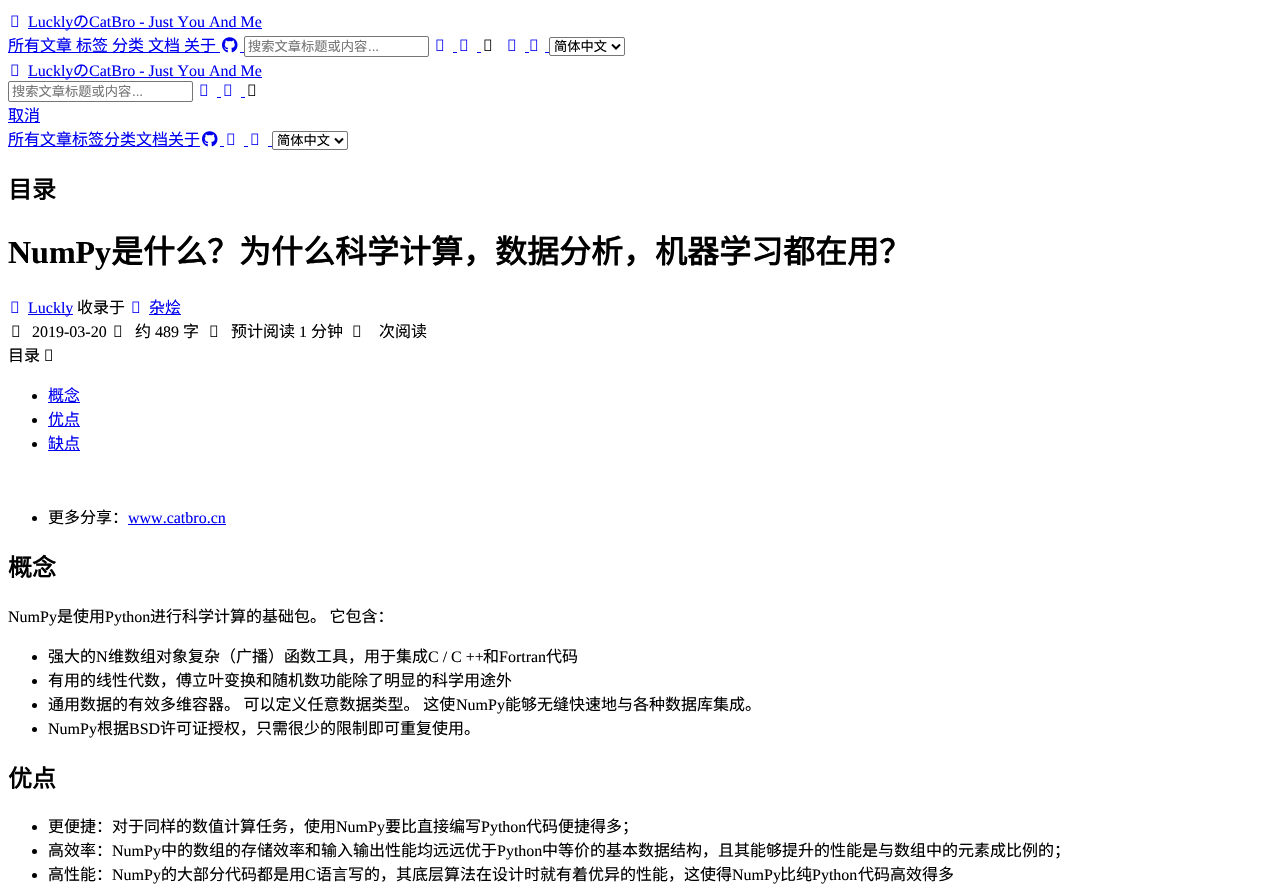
#include "include/core/SkBlurTypes.h"
#include "include/core/SkCanvas.h"
#include "include/core/SkData.h"
#include "include/core/SkFont.h"
#include "include/core/SkFontMgr.h"
#include "include/core/SkImage.h"
#include "include/core/SkMaskFilter.h"
#include "include/core/SkPaint.h"
#include "include/core/SkPathBuilder.h"
#include "include/core/SkTextBlob.h"
#include "include/effects/SkDashPathEffect.h"
#include "include/effects/SkGradientShader.h"
#include "include/utils/SkParsePath.h"

extern sk_sp<SkFontMgr> fontMgr;

static SkFont font(const char* family, int weight, float size, bool italic = false) {
    SkFontStyle style(weight, SkFontStyle::kNormal_Width,
        italic ? SkFontStyle::kItalic_Slant : SkFontStyle::kUpright_Slant);
    SkFont result(fontMgr->matchFamilyStyle(family, style), size);
    result.setSubpixel(true);
    return result;
}

static void drawLabel(SkCanvas* canvas, const char* s, float x, float y, const SkFont& font, SkColor color) {
    SkPaint ink(SkColor4f::FromColor(color));
    ink.setAntiAlias(true);
    canvas->drawString(s, x, y, font, ink);
}

static void fillRect(SkCanvas* canvas, float x, float y, float w, float h, SkColor color) {
    SkPaint ink(SkColor4f::FromColor(color));
    ink.setAntiAlias(true);
    canvas->drawRect(SkRect::MakeXYWH(x, y, w, h), ink);
}

static void drawPhoto(SkCanvas* canvas, const char* path, float x, float y, float w, float h) {
    auto image = SkImages::DeferredFromEncodedData(SkData::MakeFromFileName(path));
    canvas->drawImageRect(image, SkRect::MakeXYWH(x, y, w, h), SkSamplingOptions());
}

static SkPath parsePath(const char* data, bool evenOdd = false) {
    SkPath result = *SkParsePath::FromSVGString(data);
    if (evenOdd) result.setFillType(SkPathFillType::kEvenOdd);
    return result;
}

void draw(SkCanvas* canvas) {
    SkPaint paint;
    paint.setAntiAlias(true);
    canvas->clear(0xFFFFFFFF);
    drawPhoto(canvas, "assets/img1.png", 11, 15, 8, 12);
    fillRect(canvas, 28, 28, 234, 1, 0xFF0000EE);
    SkFont font1 = font("Liberation Serif", 400, 16);
    drawLabel(canvas, "Luckly", 28, 27, font1, 0xFF0000EE);
    SkFont font2 = font("Noto Sans CJK SC", 400, 16);
    drawLabel(canvas, "の", 73, 27, font2, 0xFF0000EE);
    drawLabel(canvas, "CatBro - Just You And Me", 89, 27, font1, 0xFF0000EE);
    fillRect(canvas, 8, 52, 212, 1, 0xFF0000EE);
    drawLabel(canvas, "所有文章", 8, 51, font2, 0xFF0000EE);
    drawLabel(canvas, "标签", 76, 51, font2, 0xFF0000EE);
    drawLabel(canvas, "分类", 112, 51, font2, 0xFF0000EE);
    drawLabel(canvas, "文档", 148, 51, font2, 0xFF0000EE);
    drawLabel(canvas, "关于", 184, 51, font2, 0xFF0000EE);
    drawPhoto(canvas, "assets/img2.png", 222, 37, 16, 16);
    fillRect(canvas, 240, 52, 4, 1, 0xFF0000EE);
    paint.setStroke(true);
    paint.setStrokeWidth(1);
    paint.setColor(0xFF767676);
    canvas->drawRoundRect(SkRect::MakeXYWH(244.5f, 36.5f, 184, 20), 1.5f, 1.5f, paint);
    SkFont font3 = font("Noto Sans CJK SC", 400, 13.25f);
    drawLabel(canvas, "搜索文章标题或内容", 248, 51, font3, 0xFF757575);
    SkFont font4 = font("Liberation Sans", 400, 13.25f);
    drawLabel(canvas, "...", 368, 51, font4, 0xFF757575);
    drawPhoto(canvas, "assets/img1.png", 436, 39, 8, 12);
    fillRect(canvas, 453, 52, 4, 1, 0xFF0000EE);
    drawPhoto(canvas, "assets/img1.png", 460, 39, 8, 12);
    fillRect(canvas, 477, 52, 4, 1, 0xFF0000EE);
    drawPhoto(canvas, "assets/img3.png", 484, 39, 8, 12);
    drawPhoto(canvas, "assets/img1.png", 508, 39, 8, 12);
    fillRect(canvas, 525, 52, 4, 1, 0xFF0000EE);
    drawPhoto(canvas, "assets/img1.png", 530, 39, 8, 12);
    fillRect(canvas, 545, 52, 4, 1, 0xFF0000EE);
    canvas->drawRoundRect(SkRect::MakeXYWH(549.5f, 37.5f, 75, 18), 1.5f, 1.5f, paint);
    paint.setStrokeWidth(2);
    paint.setColor(0xFF000000);
    canvas->drawPath(parsePath("M612 44.5L616 48.5L620 44.5"), paint);
    drawLabel(canvas, "简体中文", 554, 51, font3, 0xFF000000);
    drawPhoto(canvas, "assets/img1.png", 11, 64, 8, 12);
    fillRect(canvas, 28, 77, 234, 1, 0xFF0000EE);
    drawLabel(canvas, "Luckly", 28, 76, font1, 0xFF0000EE);
    drawLabel(canvas, "の", 73, 76, font2, 0xFF0000EE);
    drawLabel(canvas, "CatBro - Just You And Me", 89, 76, font1, 0xFF0000EE);
    paint.setStrokeWidth(1);
    paint.setColor(0xFF767676);
    canvas->drawRoundRect(SkRect::MakeXYWH(8.5f, 81.5f, 184, 20), 1.5f, 1.5f, paint);
    drawLabel(canvas, "搜索文章标题或内容", 12, 96, font3, 0xFF757575);
    drawLabel(canvas, "...", 132, 96, font4, 0xFF757575);
    drawPhoto(canvas, "assets/img1.png", 200, 84, 8, 12);
    fillRect(canvas, 217, 97, 4, 1, 0xFF0000EE);
    drawPhoto(canvas, "assets/img1.png", 224, 84, 8, 12);
    fillRect(canvas, 241, 97, 4, 1, 0xFF0000EE);
    drawPhoto(canvas, "assets/img3.png", 248, 84, 8, 12);
    fillRect(canvas, 8, 122, 32, 1, 0xFF0000EE);
    drawLabel(canvas, "取消", 8, 121, font2, 0xFF0000EE);
    fillRect(canvas, 8, 146, 192, 1, 0xFF0000EE);
    drawLabel(canvas, "所有文章标签分类文档关于", 8, 145, font2, 0xFF0000EE);
    drawPhoto(canvas, "assets/img2.png", 202, 131, 16, 16);
    drawPhoto(canvas, "assets/img1.png", 227, 133, 8, 12);
    fillRect(canvas, 220, 146, 4, 1, 0xFF0000EE);
    fillRect(canvas, 244, 146, 4, 1, 0xFF0000EE);
    drawPhoto(canvas, "assets/img1.png", 251, 133, 8, 12);
    fillRect(canvas, 268, 146, 4, 1, 0xFF0000EE);
    canvas->drawRoundRect(SkRect::MakeXYWH(272.5f, 131.5f, 75, 18), 1.5f, 1.5f, paint);
    paint.setStrokeWidth(2);
    paint.setColor(0xFF000000);
    canvas->drawPath(parsePath("M335 138.5L339 142.5L343 138.5"), paint);
    drawLabel(canvas, "简体中文", 277, 145, font3, 0xFF000000);
    SkFont font5 = font("Noto Sans CJK SC", 700, 24);
    drawLabel(canvas, "目录", 8, 198, font5, 0xFF000000);
    SkFont font6 = font("Liberation Serif", 700, 32);
    drawLabel(canvas, "NumPy", 8, 263, font6, 0xFF000000);
    SkFont font7 = font("Noto Sans CJK SC", 700, 32);
    drawLabel(canvas, "是什么？为什么科学计算，数据分析，机器学习都在用？", 111, 263, font7, 0xFF000000);
    drawPhoto(canvas, "assets/img1.png", 11, 301, 8, 12);
    fillRect(canvas, 28, 314, 45, 1, 0xFF0000EE);
    drawLabel(canvas, "Luckly", 28, 313, font1, 0xFF0000EE);
    drawLabel(canvas, "收录于", 77, 313, font2, 0xFF000000);
    drawPhoto(canvas, "assets/img1.png", 132, 301, 8, 12);
    fillRect(canvas, 149, 314, 32, 1, 0xFF0000EE);
    drawLabel(canvas, "杂烩", 149, 313, font2, 0xFF0000EE);
    drawPhoto(canvas, "assets/img3.png", 12, 325, 8, 12);
    drawLabel(canvas, "2019-03-20", 32, 337, font1, 0xFF000000);
    drawPhoto(canvas, "assets/img3.png", 114, 325, 8, 12);
    drawLabel(canvas, "约", 135, 337, font2, 0xFF000000);
    drawLabel(canvas, "489", 155, 337, font1, 0xFF000000);
    drawLabel(canvas, "字", 183, 337, font2, 0xFF000000);
    drawPhoto(canvas, "assets/img3.png", 210, 325, 8, 12);
    drawLabel(canvas, "预计阅读", 231, 337, font2, 0xFF000000);
    drawLabel(canvas, "1", 299, 337, font1, 0xFF000000);
    drawLabel(canvas, "分钟", 311, 337, font2, 0xFF000000);
    drawPhoto(canvas, "assets/img3.png", 353, 325, 8, 12);
    drawLabel(canvas, "次阅读", 379, 337, font2, 0xFF000000);
    drawLabel(canvas, "目录", 8, 361, font2, 0xFF000000);
    drawPhoto(canvas, "assets/img4.png", 45, 349, 7, 12);
    paint.setStroke(false);
    canvas->drawCircle(34.5f, 396.5f, 2.5f, paint);
    fillRect(canvas, 48, 402, 32, 1, 0xFF0000EE);
    drawLabel(canvas, "概念", 48, 401, font2, 0xFF0000EE);
    canvas->drawCircle(34.5f, 420.5f, 2.5f, paint);
    fillRect(canvas, 48, 426, 32, 1, 0xFF0000EE);
    drawLabel(canvas, "优点", 48, 425, font2, 0xFF0000EE);
    canvas->drawCircle(34.5f, 444.5f, 2.5f, paint);
    fillRect(canvas, 48, 450, 32, 1, 0xFF0000EE);
    drawLabel(canvas, "缺点", 48, 449, font2, 0xFF0000EE);
    canvas->drawCircle(34.5f, 518.5f, 2.5f, paint);
    drawLabel(canvas, "更多分享：", 48, 523, font2, 0xFF000000);
    drawLabel(canvas, "www.catbro.cn", 128, 523, font1, 0xFF0000EE);
    fillRect(canvas, 128, 524, 98, 1, 0xFF0000EE);
    drawLabel(canvas, "概念", 8, 576, font5, 0xFF000000);
    drawLabel(canvas, "NumPy", 8, 622, font1, 0xFF000000);
    drawLabel(canvas, "是使用", 57, 622, font2, 0xFF000000);
    drawLabel(canvas, "Python", 105, 622, font1, 0xFF000000);
    drawLabel(canvas, "进行科学计算的基础包。 它包含：", 150, 622, font2, 0xFF000000);
    canvas->drawCircle(34.5f, 657.5f, 2.5f, paint);
    drawLabel(canvas, "强大的", 48, 662, font2, 0xFF000000);
    drawLabel(canvas, "N", 96, 662, font1, 0xFF000000);
    drawLabel(canvas, "维数组对象复杂（广播）函数工具，用于集成", 108, 662, font2, 0xFF000000);
    drawLabel(canvas, "C / C ++", 428, 662, font1, 0xFF000000);
    drawLabel(canvas, "和", 483, 662, font2, 0xFF000000);
    drawLabel(canvas, "Fortran", 499, 662, font1, 0xFF000000);
    drawLabel(canvas, "代码", 546, 662, font2, 0xFF000000);
    canvas->drawCircle(34.5f, 681.5f, 2.5f, paint);
    drawLabel(canvas, "有用的线性代数，傅立叶变换和随机数功能除了明显的科学用途外", 48, 686, font2, 0xFF000000);
    canvas->drawCircle(34.5f, 705.5f, 2.5f, paint);
    drawLabel(canvas, "通用数据的有效多维容器。 可以定义任意数据类型。 这使", 48, 710, font2, 0xFF000000);
    drawLabel(canvas, "NumPy", 456, 710, font1, 0xFF000000);
    drawLabel(canvas, "能够无缝快速地与各种数据库集成。", 505, 710, font2, 0xFF000000);
    canvas->drawCircle(34.5f, 729.5f, 2.5f, paint);
    drawLabel(canvas, "NumPy", 48, 734, font1, 0xFF000000);
    drawLabel(canvas, "根据", 97, 734, font2, 0xFF000000);
    drawLabel(canvas, "BSD", 129, 734, font1, 0xFF000000);
    drawLabel(canvas, "许可证授权，只需很少的限制即可重复使用。", 160, 734, font2, 0xFF000000);
    drawLabel(canvas, "优点", 8, 787, font5, 0xFF000000);
    canvas->drawCircle(34.5f, 827.5f, 2.5f, paint);
    drawLabel(canvas, "更便捷：对于同样的数值计算任务，使用", 48, 832, font2, 0xFF000000);
    drawLabel(canvas, "NumPy", 336, 832, font1, 0xFF000000);
    drawLabel(canvas, "要比直接编写", 385, 832, font2, 0xFF000000);
    drawLabel(canvas, "Python", 481, 832, font1, 0xFF000000);
    drawLabel(canvas, "代码便捷得多；", 526, 832, font2, 0xFF000000);
    canvas->drawCircle(34.5f, 851.5f, 2.5f, paint);
    drawLabel(canvas, "高效率：", 48, 856, font2, 0xFF000000);
    drawLabel(canvas, "NumPy", 112, 856, font1, 0xFF000000);
    drawLabel(canvas, "中的数组的存储效率和输入输出性能均远远优于", 161, 856, font2, 0xFF000000);
    drawLabel(canvas, "Python", 497, 856, font1, 0xFF000000);
    drawLabel(canvas, "中等价的基本数据结构，且其能够提升的性能是与数组中的元素成比例的；", 542, 856, font2, 0xFF000000);
    canvas->drawCircle(34.5f, 875.5f, 2.5f, paint);
    drawLabel(canvas, "高性能：", 48, 880, font2, 0xFF000000);
    drawLabel(canvas, "NumPy", 112, 880, font1, 0xFF000000);
    drawLabel(canvas, "的大部分代码都是用", 161, 880, font2, 0xFF000000);
    drawLabel(canvas, "C", 305, 880, font1, 0xFF000000);
    drawLabel(canvas, "语言写的，其底层算法在设计时就有着优异的性能，这使得", 316, 880, font2, 0xFF000000);
    drawLabel(canvas, "NumPy", 732, 880, font1, 0xFF000000);
    drawLabel(canvas, "比纯", 780, 880, font2, 0xFF000000);
    drawLabel(canvas, "Python", 812, 880, font1, 0xFF000000);
    drawLabel(canvas, "代码高效得多", 858, 880, font2, 0xFF000000);
}
